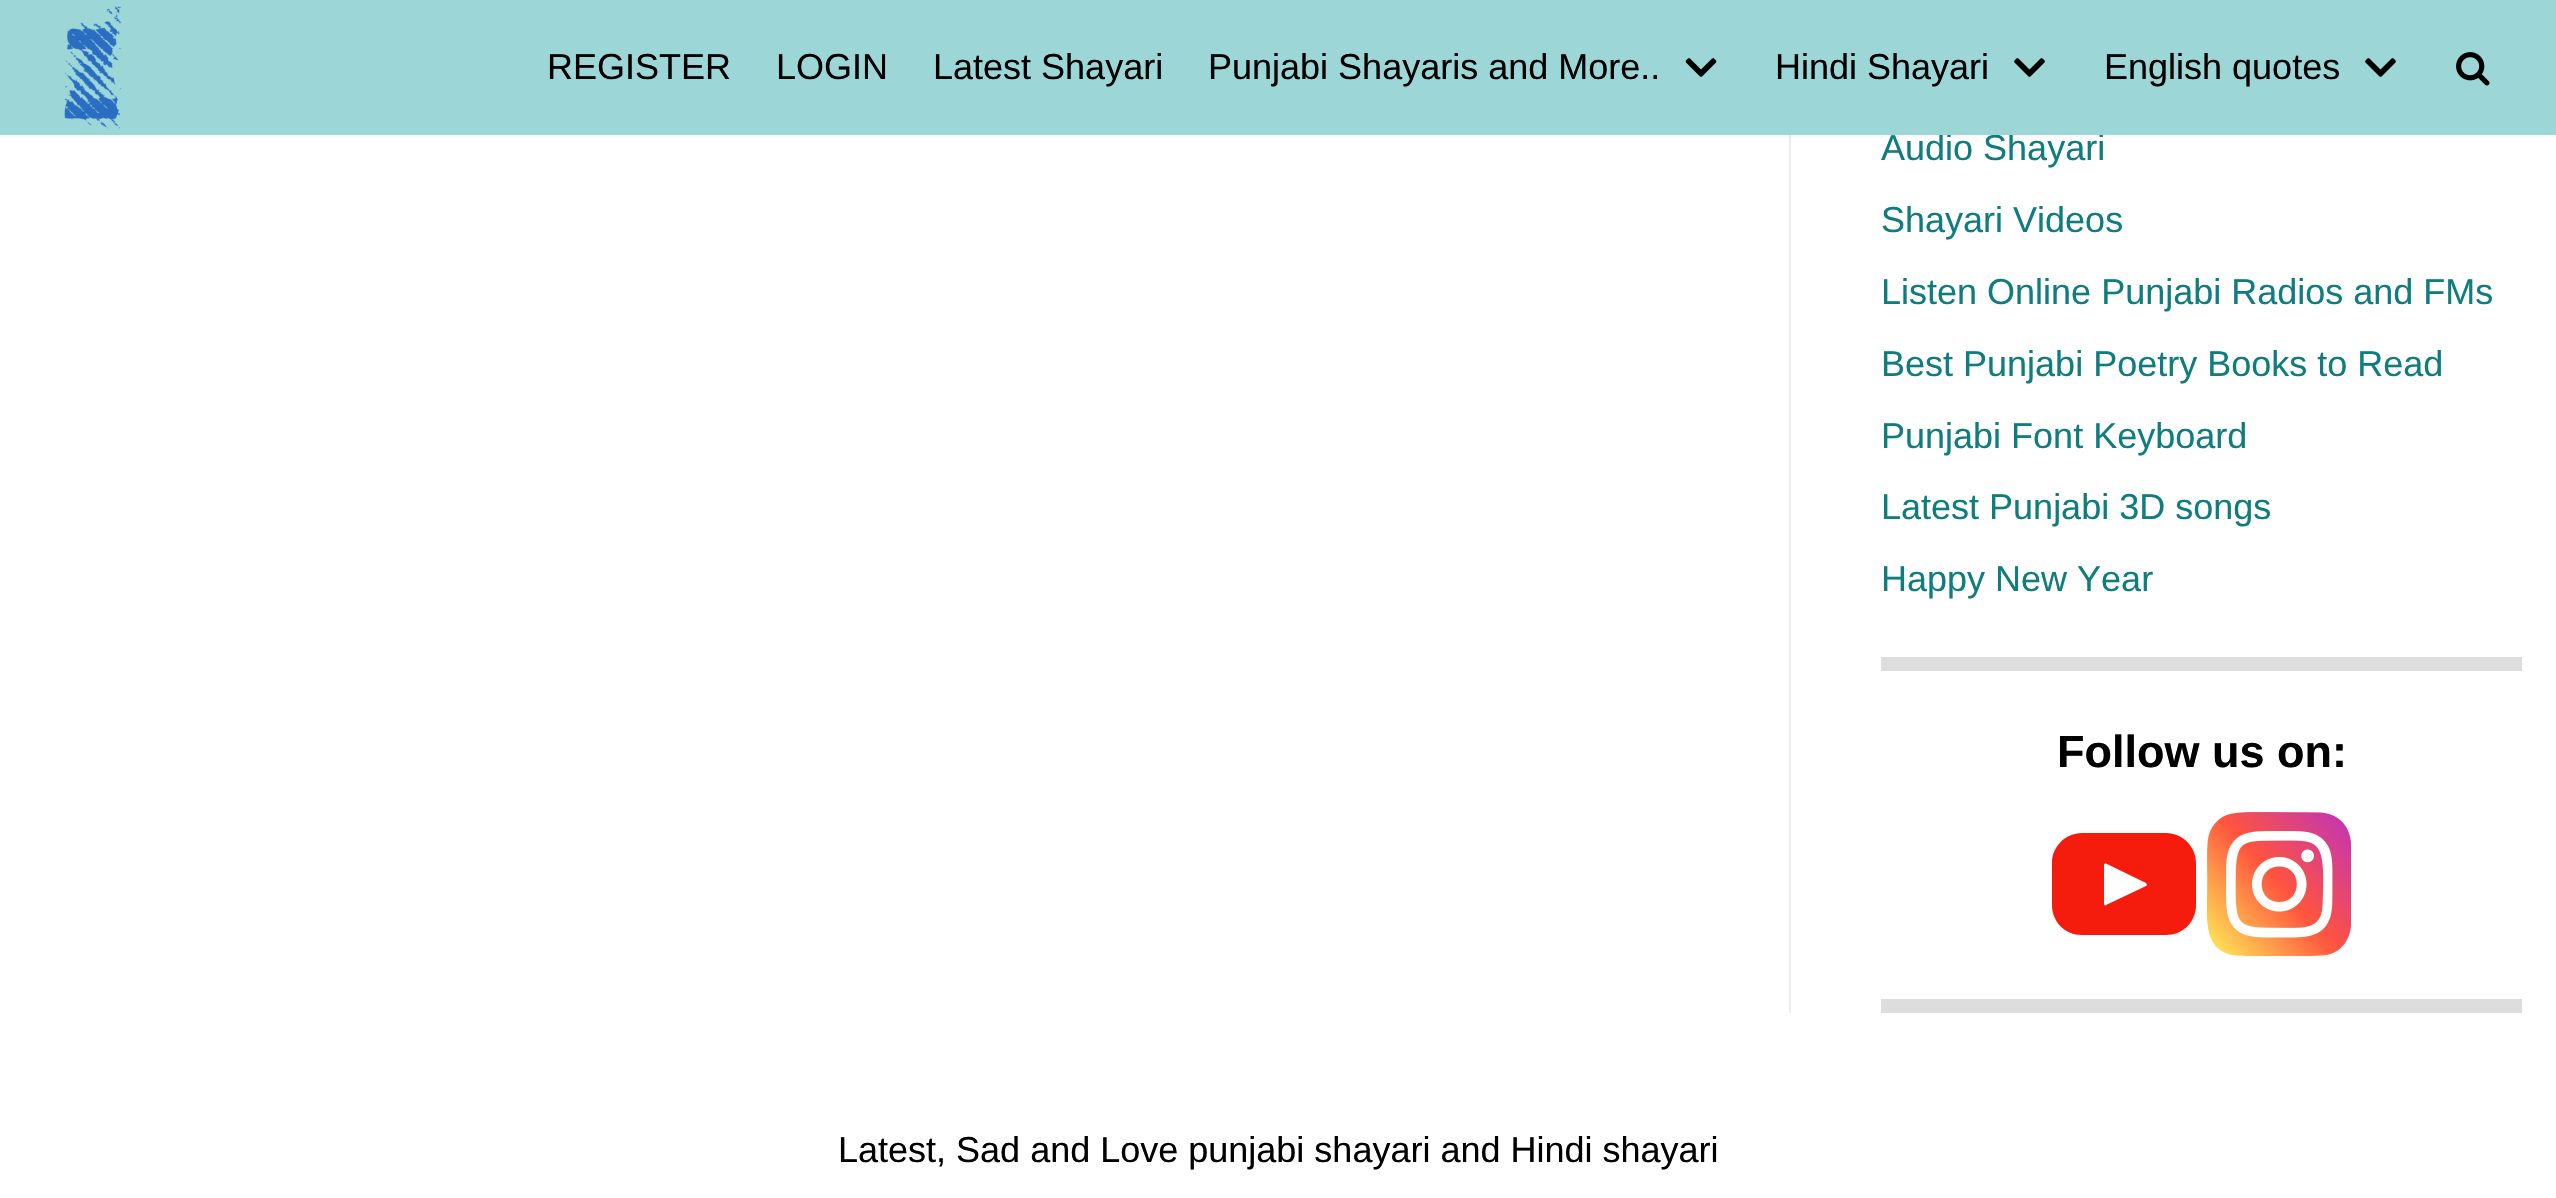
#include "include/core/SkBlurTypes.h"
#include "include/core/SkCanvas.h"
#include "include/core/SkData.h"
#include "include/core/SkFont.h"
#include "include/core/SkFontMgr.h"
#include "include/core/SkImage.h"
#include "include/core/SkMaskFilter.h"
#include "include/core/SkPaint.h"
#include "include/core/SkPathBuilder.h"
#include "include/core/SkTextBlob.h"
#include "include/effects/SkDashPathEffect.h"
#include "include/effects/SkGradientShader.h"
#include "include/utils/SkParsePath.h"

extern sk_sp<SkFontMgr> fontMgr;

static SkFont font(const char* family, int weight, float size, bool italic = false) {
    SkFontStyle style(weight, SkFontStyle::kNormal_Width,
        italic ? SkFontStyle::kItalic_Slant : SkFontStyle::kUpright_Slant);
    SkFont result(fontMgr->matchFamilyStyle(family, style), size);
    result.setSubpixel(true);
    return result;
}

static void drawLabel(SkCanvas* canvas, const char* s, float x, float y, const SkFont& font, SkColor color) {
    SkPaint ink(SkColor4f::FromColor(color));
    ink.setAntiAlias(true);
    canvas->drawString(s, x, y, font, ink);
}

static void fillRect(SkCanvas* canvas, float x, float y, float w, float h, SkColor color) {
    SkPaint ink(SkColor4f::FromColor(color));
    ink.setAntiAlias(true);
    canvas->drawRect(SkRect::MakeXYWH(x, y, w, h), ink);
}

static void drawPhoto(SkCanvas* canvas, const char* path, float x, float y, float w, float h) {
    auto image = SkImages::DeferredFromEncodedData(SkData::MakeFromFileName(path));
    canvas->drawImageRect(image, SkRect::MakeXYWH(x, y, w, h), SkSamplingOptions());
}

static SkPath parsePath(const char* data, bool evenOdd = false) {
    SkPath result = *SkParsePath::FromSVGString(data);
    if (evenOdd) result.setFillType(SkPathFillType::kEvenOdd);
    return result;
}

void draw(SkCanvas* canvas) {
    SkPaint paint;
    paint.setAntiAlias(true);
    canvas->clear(0xFFFFFFFF);
    fillRect(canvas, 1789, 135, 2, 878, 0xFFEDEDED);
    paint.setColor(0x1A000000);
    paint.setMaskFilter(SkMaskFilter::MakeBlur(kNormal_SkBlurStyle, 3.5f));
    canvas->drawRect(SkRect::MakeXYWH(0, -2, 2556, 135), paint);
    paint.setMaskFilter(nullptr);
    SkFont font1 = font("Liberation Sans", 400, 36);
    drawLabel(canvas, "Audio Shayari", 1881, 160, font1, 0xFF0F7D7D);
    fillRect(canvas, 0, 0, 2556, 135, 0xFF9DD6D6);
    drawPhoto(canvas, "assets/img1.png", 64, 6, 58, 123);
    drawLabel(canvas, "REGISTER", 547, 79, font1, 0xFF000000);
    drawLabel(canvas, "LOGIN", 776, 79, font1, 0xFF000000);
    drawLabel(canvas, "Latest Shayari", 933, 79, font1, 0xFF000000);
    drawLabel(canvas, "Punjabi Shayaris and More..", 1208, 79, font1, 0xFF000000);
    drawPhoto(canvas, "assets/img2.png", 1685, 58, 32, 19);
    drawLabel(canvas, "Hindi Shayari", 1775, 79, font1, 0xFF000000);
    drawPhoto(canvas, "assets/img3.png", 2014, 58, 31, 19);
    drawLabel(canvas, "English quotes", 2104, 79, font1, 0xFF000000);
    drawPhoto(canvas, "assets/img3.png", 2365, 58, 31, 19);
    drawPhoto(canvas, "assets/img4.png", 2456, 52, 34, 34);
    fillRect(canvas, 1881, 657, 641, 14, 0xFFDDDDDD);
    drawLabel(canvas, "Shayari Videos", 1881, 232, font1, 0xFF0F7D7D);
    drawLabel(canvas, "Listen Online Punjabi Radios and FMs", 1881, 304, font1, 0xFF0F7D7D);
    drawLabel(canvas, "Best Punjabi Poetry Books to Read", 1881, 376, font1, 0xFF0F7D7D);
    drawLabel(canvas, "Punjabi Font Keyboard", 1881, 448, font1, 0xFF0F7D7D);
    drawLabel(canvas, "Latest Punjabi 3D songs", 1881, 519, font1, 0xFF0F7D7D);
    drawLabel(canvas, "Happy New Year", 1881, 591, font1, 0xFF0F7D7D);
    fillRect(canvas, 1881, 999, 641, 14, 0xFFDDDDDD);
    SkFont font2 = font("Liberation Sans", 700, 45);
    drawLabel(canvas, "Follow us on:", 2057, 767, font2, 0xFF000000);
    paint.setColor(0xFFF61C0D);
    canvas->drawPath(parsePath("M2166 833H2082C2065 833 2052 847 2052 863V905C2052 922 2065 935 2082 935H2166C2183 935 2196 922 2196 905V863C2196 847 2183 833 2166 833ZM2146 886L2106 905C2105 906 2104 905 2104 904V865C2104 864 2105 863 2107 864L2146 883C2147 884 2147 886 2146 886Z"), paint);
    drawPhoto(canvas, "assets/img5.png", 2207, 812, 144, 144);
    drawLabel(canvas, "Latest, Sad and Love punjabi shayari and Hindi shayari", 838, 1162, font1, 0xFF000000);
}
